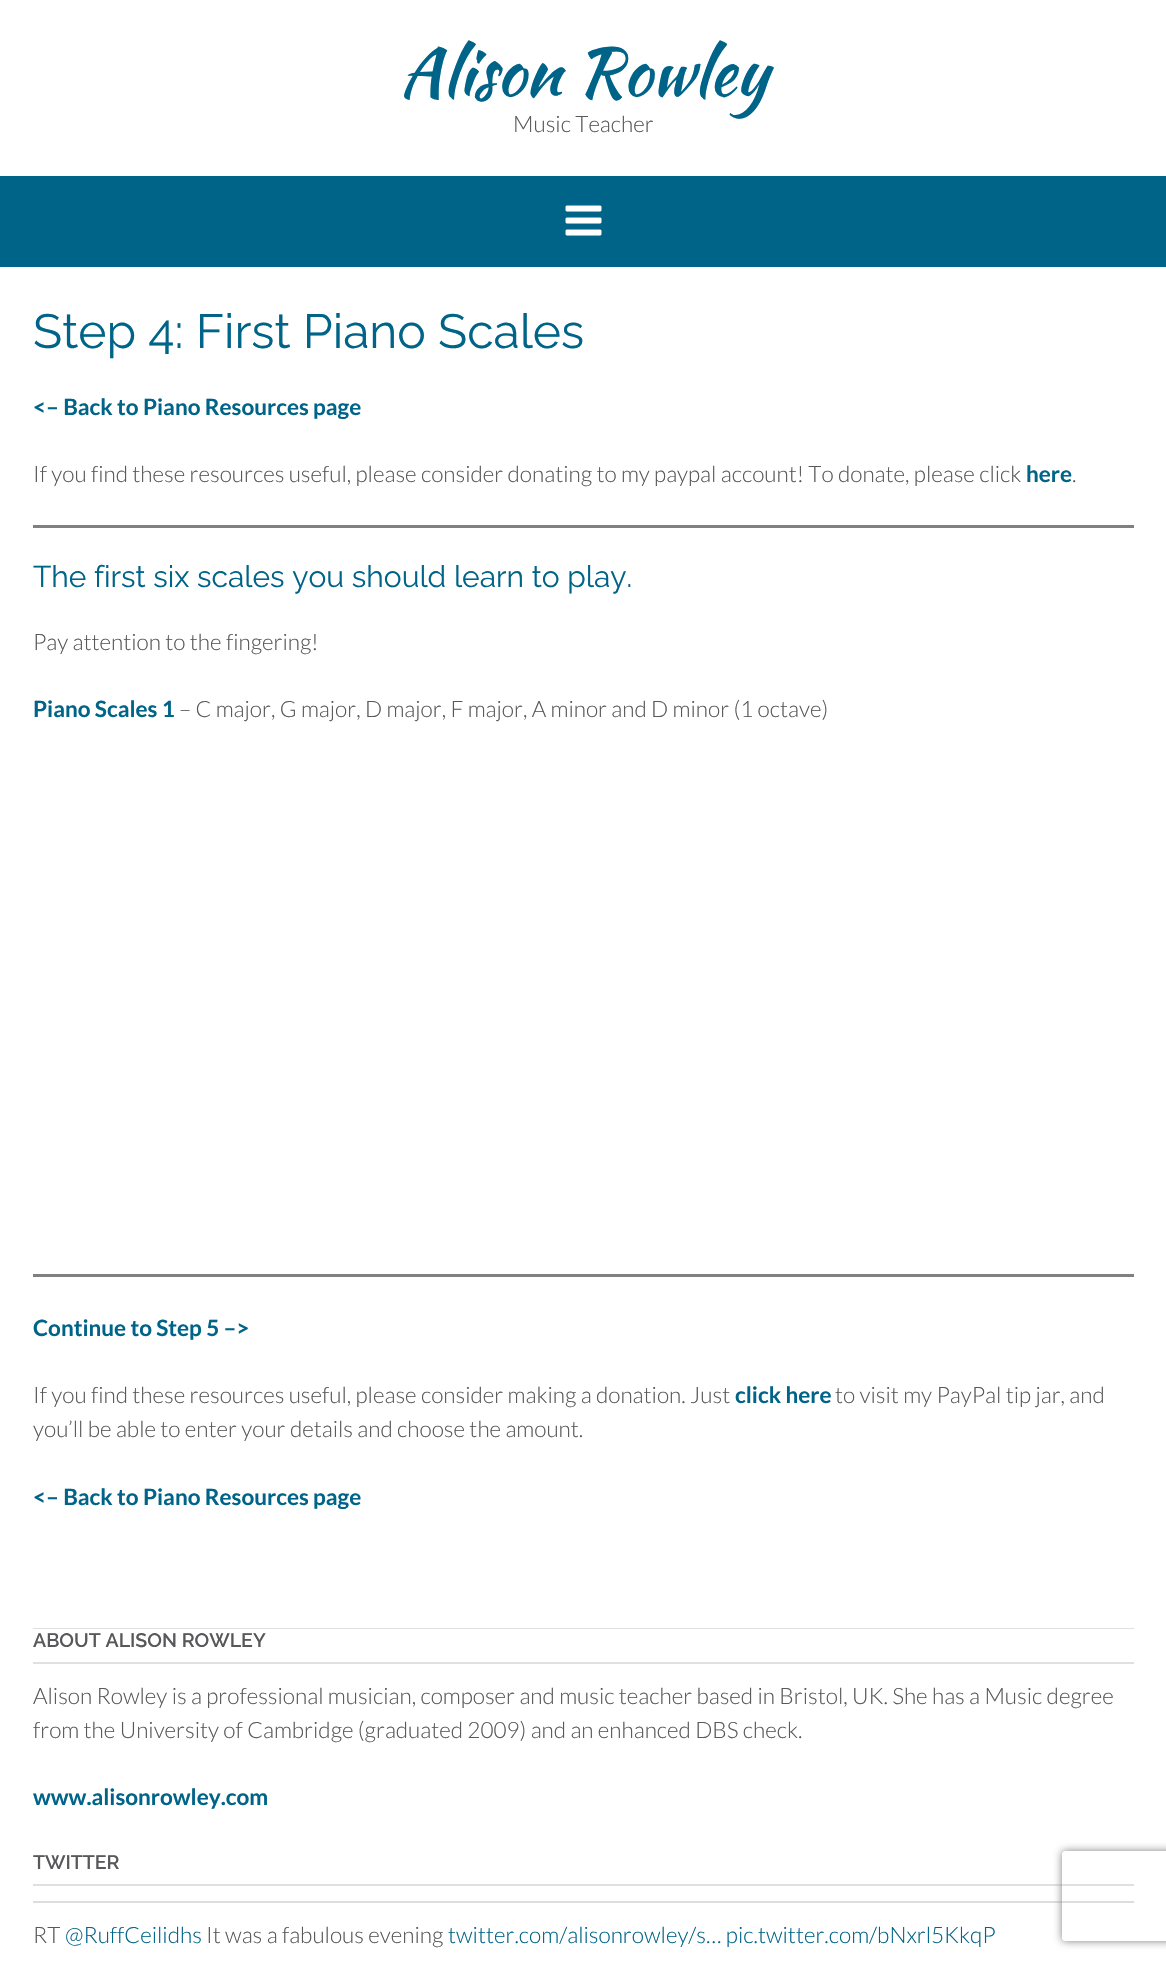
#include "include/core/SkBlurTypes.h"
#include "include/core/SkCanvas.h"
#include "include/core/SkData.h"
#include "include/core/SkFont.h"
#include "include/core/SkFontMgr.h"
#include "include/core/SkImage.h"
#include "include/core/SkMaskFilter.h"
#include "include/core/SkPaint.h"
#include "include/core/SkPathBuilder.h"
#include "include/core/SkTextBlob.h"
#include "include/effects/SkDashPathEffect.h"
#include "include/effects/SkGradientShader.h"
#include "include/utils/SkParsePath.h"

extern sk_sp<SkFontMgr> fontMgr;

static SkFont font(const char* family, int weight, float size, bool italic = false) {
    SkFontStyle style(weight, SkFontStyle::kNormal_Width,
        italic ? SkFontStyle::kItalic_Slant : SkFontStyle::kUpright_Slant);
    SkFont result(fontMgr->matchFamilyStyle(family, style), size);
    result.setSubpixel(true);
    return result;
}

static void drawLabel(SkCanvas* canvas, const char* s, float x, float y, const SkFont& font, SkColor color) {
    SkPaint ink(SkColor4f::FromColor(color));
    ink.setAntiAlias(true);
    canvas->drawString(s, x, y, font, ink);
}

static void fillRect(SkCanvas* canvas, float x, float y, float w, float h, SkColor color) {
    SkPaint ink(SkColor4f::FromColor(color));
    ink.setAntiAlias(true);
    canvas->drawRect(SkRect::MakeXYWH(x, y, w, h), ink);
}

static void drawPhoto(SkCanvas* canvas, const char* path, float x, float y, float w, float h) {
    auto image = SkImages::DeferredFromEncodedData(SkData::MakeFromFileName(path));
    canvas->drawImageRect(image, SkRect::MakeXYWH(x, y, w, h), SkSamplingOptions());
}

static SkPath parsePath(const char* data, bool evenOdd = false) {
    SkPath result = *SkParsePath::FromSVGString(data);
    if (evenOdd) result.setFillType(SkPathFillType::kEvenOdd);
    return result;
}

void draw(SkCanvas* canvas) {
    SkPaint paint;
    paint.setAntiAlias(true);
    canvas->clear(0xFFFFFFFF);
    SkFont font1 = font("Kaushan Script", 400, 66);
    drawLabel(canvas, "Alison Rowley", 400, 95, font1, 0xFF006489);
    SkFont font2 = font("Lato", 300, 22.5f);
    drawLabel(canvas, "Music Teacher", 513, 132, font2, 0xFF58585A);
    fillRect(canvas, 0, 176, 1166, 91, 0xFF006489);
    drawPhoto(canvas, "assets/img1.png", 565, 205, 37, 31);
    SkFont font3 = font("Raleway", 400, 48);
    drawLabel(canvas, "Step 4: First Piano Scales", 33, 348, font3, 0xFF006489);
    SkFont font4 = font("Lato", 700, 22.5f);
    drawLabel(canvas, "<– Back to Piano Resources page", 33, 415, font4, 0xFF006489);
    drawLabel(canvas, "If you find these resources useful, please consider donating to my paypal account! To donate, please click", 33, 482, font2, 0xFF58585A);
    drawLabel(canvas, "here", 1026, 482, font4, 0xFF006489);
    drawLabel(canvas, ".", 1072, 482, font2, 0xFF58585A);
    fillRect(canvas, 33, 525, 1101, 3, 0xFF808080);
    SkFont font5 = font("Raleway", 400, 30);
    drawLabel(canvas, "The first six scales you should learn to play.", 33, 587, font5, 0xFF006489);
    drawLabel(canvas, "Pay attention to the fingering!", 33, 650, font2, 0xFF58585A);
    drawLabel(canvas, "Piano Scales 1", 33, 717, font4, 0xFF006489);
    drawLabel(canvas, "– C major, G major, D major, F major, A minor and D minor (1 octave)", 179, 717, font2, 0xFF58585A);
    fillRect(canvas, 33, 1274, 1101, 3, 0xFF808080);
    drawLabel(canvas, "Continue to Step 5 –>", 33, 1336, font4, 0xFF006489);
    drawLabel(canvas, "If you find these resources useful, please consider making a donation. Just", 33, 1403, font2, 0xFF58585A);
    drawLabel(canvas, "click here", 735, 1403, font4, 0xFF006489);
    drawLabel(canvas, "to visit my PayPal tip jar, and", 835, 1403, font2, 0xFF58585A);
    drawLabel(canvas, "you’ll be able to enter your details and choose the amount.", 33, 1437, font2, 0xFF58585A);
    drawLabel(canvas, "<– Back to Piano Resources page", 33, 1505, font4, 0xFF006489);
    fillRect(canvas, 33, 1628, 1101, 1, 0xFFE0E0E0);
    fillRect(canvas, 33, 1662, 1101, 2, 0xFFE0E0E0);
    SkFont font6 = font("Raleway", 600, 19.5f);
    drawLabel(canvas, "ABOUT ALISON ROWLEY", 33, 1647, font6, 0xFF58585A);
    drawLabel(canvas, "Alison Rowley is a professional musician, composer and music teacher based in Bristol, UK. She has a Music degree", 33, 1704, font2, 0xFF58585A);
    drawLabel(canvas, "from the University of Cambridge (graduated 2009) and an enhanced DBS check.", 33, 1738, font2, 0xFF58585A);
    drawLabel(canvas, "www.alisonrowley.com", 33, 1805, font4, 0xFF006489);
    fillRect(canvas, 33, 1884, 1101, 2, 0xFFE0E0E0);
    drawLabel(canvas, "TWITTER", 33, 1869, font6, 0xFF58585A);
    fillRect(canvas, 33, 1901, 1101, 2, 0xFFDDDDDD);
    drawLabel(canvas, "RT", 33, 1943, font2, 0xFF58585A);
    drawLabel(canvas, "@RuffCeilidhs", 65, 1943, font2, 0xFF006489);
    drawLabel(canvas, "It was a fabulous evening", 206, 1943, font2, 0xFF58585A);
    drawLabel(canvas, "twitter.com/alisonrowley/s… pic.twitter.com/bNxrl5KkqP", 448, 1943, font2, 0xFF006489);
    canvas->save();
    canvas->clipPath(parsePath("M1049 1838H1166V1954H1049ZM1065 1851H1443C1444.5 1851 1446 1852.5 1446 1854V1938C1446 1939.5 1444.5 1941 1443 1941H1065C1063.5 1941 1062 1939.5 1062 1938V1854C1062 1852.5 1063.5 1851 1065 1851Z", true), true);
    paint.setColor(0xFF808080);
    paint.setMaskFilter(SkMaskFilter::MakeBlur(kNormal_SkBlurStyle, 4));
    canvas->drawRoundRect(SkRect::MakeXYWH(1062, 1851, 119, 90), 3, 3, paint);
    paint.setMaskFilter(nullptr);
    canvas->restore();
}
